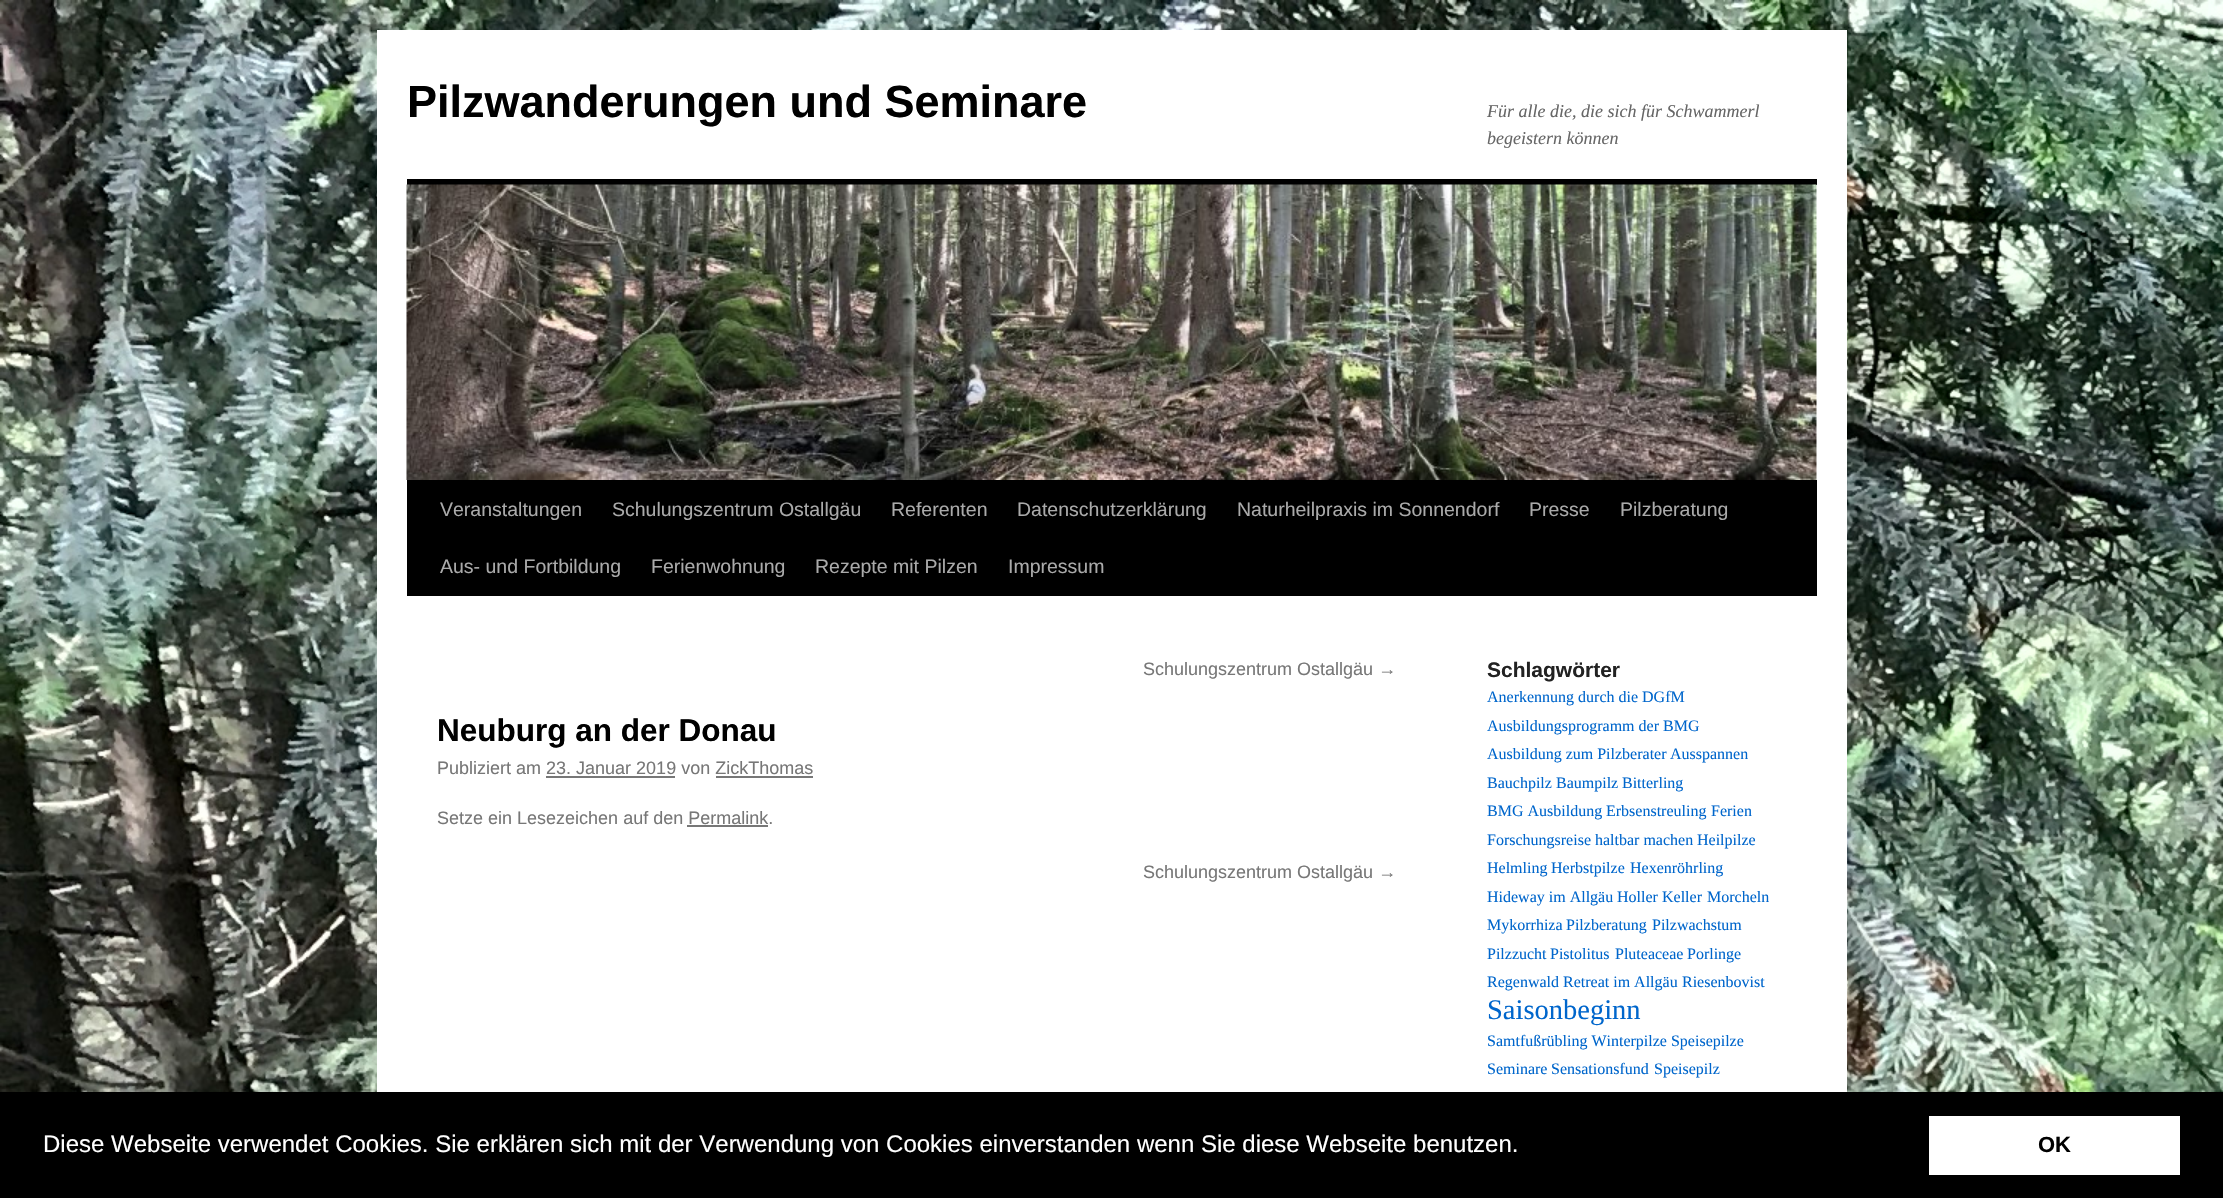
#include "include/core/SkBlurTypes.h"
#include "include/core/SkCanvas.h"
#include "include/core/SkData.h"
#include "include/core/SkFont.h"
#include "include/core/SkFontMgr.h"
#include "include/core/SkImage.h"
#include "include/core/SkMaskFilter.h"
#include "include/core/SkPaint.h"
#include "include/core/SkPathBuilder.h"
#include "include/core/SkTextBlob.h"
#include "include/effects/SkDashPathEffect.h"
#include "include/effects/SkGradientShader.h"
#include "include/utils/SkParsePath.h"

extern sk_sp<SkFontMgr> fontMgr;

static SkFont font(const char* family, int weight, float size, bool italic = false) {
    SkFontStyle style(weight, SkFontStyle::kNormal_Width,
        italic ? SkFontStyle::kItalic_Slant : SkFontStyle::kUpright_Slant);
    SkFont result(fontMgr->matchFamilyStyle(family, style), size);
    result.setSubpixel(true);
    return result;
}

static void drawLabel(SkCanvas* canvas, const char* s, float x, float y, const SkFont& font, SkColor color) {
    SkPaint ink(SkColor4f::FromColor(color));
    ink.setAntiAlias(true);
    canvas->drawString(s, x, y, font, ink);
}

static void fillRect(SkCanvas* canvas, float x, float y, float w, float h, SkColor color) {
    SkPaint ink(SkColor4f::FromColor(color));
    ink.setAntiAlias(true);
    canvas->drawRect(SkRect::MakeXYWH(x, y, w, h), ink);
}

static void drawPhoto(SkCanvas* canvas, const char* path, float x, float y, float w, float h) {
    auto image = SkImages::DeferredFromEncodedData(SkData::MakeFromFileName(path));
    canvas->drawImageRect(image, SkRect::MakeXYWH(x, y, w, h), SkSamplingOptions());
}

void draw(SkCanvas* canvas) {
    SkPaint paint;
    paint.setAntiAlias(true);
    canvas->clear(0xFFFFFFFF);
    drawPhoto(canvas, "assets/img1.png", 0, 0, 2223, 1092);
    fillRect(canvas, 377, 30, 1470, 1062, 0xFFFFFFFF);
    SkFont font1 = font("Liberation Sans", 700, 45);
    drawLabel(canvas, "Pilzwanderungen und Seminare", 407, 117, font1, 0xFF000000);
    SkFont font2 = font("Liberation Serif", 400, 18, true);
    drawLabel(canvas, "Für alle die, die sich für Schwammerl", 1487, 117, font2, 0xFF666666);
    drawLabel(canvas, "begeistern können", 1487, 144, font2, 0xFF666666);
    fillRect(canvas, 407, 179, 1410, 6, 0xFF000000);
    fillRect(canvas, 407, 480, 1410, 116, 0xFF000000);
    drawPhoto(canvas, "assets/img2.png", 406, 184, 1411, 296);
    SkFont font3 = font("Liberation Sans", 400, 19.5f);
    drawLabel(canvas, "Veranstaltungen", 440, 516, font3, 0xFFAAAAAA);
    drawLabel(canvas, "Schulungszentrum Ostallgäu", 612, 516, font3, 0xFFAAAAAA);
    drawLabel(canvas, "Referenten", 891, 516, font3, 0xFFAAAAAA);
    drawLabel(canvas, "Datenschutzerklärung", 1017, 516, font3, 0xFFAAAAAA);
    drawLabel(canvas, "Naturheilpraxis im Sonnendorf", 1237, 516, font3, 0xFFAAAAAA);
    drawLabel(canvas, "Presse", 1529, 516, font3, 0xFFAAAAAA);
    drawLabel(canvas, "Pilzberatung", 1620, 516, font3, 0xFFAAAAAA);
    drawLabel(canvas, "Aus- und Fortbildung", 440, 573, font3, 0xFFAAAAAA);
    drawLabel(canvas, "Ferienwohnung", 651, 573, font3, 0xFFAAAAAA);
    drawLabel(canvas, "Rezepte mit Pilzen", 815, 573, font3, 0xFFAAAAAA);
    drawLabel(canvas, "Impressum", 1008, 573, font3, 0xFFAAAAAA);
    SkFont font4 = font("Liberation Sans", 400, 18);
    drawLabel(canvas, "Schulungszentrum Ostallgäu →", 1143, 675, font4, 0xFF777777);
    SkFont font5 = font("Liberation Sans", 700, 31.5f);
    drawLabel(canvas, "Neuburg an der Donau", 437, 741, font5, 0xFF000000);
    drawLabel(canvas, "Publiziert am 23. Januar 2019 von ZickThomas", 437, 774, font4, 0xFF777777);
    fillRect(canvas, 546, 776, 129, 2, 0xFF777777);
    fillRect(canvas, 716, 776, 97, 2, 0xFF777777);
    drawLabel(canvas, "Setze ein Lesezeichen auf den Permalink.", 437, 824, font4, 0xFF777777);
    fillRect(canvas, 687, 825, 81, 2, 0xFF777777);
    drawLabel(canvas, "Schulungszentrum Ostallgäu →", 1143, 878, font4, 0xFF777777);
    SkFont font6 = font("Liberation Sans", 700, 21);
    drawLabel(canvas, "Schlagwörter", 1487, 677, font6, 0xFF222222);
    SkFont font7 = font("Liberation Serif", 400, 16);
    drawLabel(canvas, "Anerkennung durch die DGfM", 1487, 702, font7, 0xFF0066CC);
    drawLabel(canvas, "Ausbildungsprogramm der BMG", 1487, 731, font7, 0xFF0066CC);
    drawLabel(canvas, "Ausbildung zum Pilzberater", 1487, 759, font7, 0xFF0066CC);
    drawLabel(canvas, "Ausspannen", 1670, 759, font7, 0xFF0066CC);
    drawLabel(canvas, "Bauchpilz", 1487, 788, font7, 0xFF0066CC);
    drawLabel(canvas, "Baumpilz", 1556, 788, font7, 0xFF0066CC);
    drawLabel(canvas, "Bitterling", 1622, 788, font7, 0xFF0066CC);
    drawLabel(canvas, "BMG Ausbildung", 1487, 816, font7, 0xFF0066CC);
    drawLabel(canvas, "Erbsenstreuling", 1606, 816, font7, 0xFF0066CC);
    drawLabel(canvas, "Ferien", 1711, 816, font7, 0xFF0066CC);
    drawLabel(canvas, "Forschungsreise", 1487, 845, font7, 0xFF0066CC);
    drawLabel(canvas, "haltbar machen", 1595, 845, font7, 0xFF0066CC);
    drawLabel(canvas, "Heilpilze", 1697, 845, font7, 0xFF0066CC);
    drawLabel(canvas, "Helmling", 1487, 873, font7, 0xFF0066CC);
    drawLabel(canvas, "Herbstpilze", 1551, 873, font7, 0xFF0066CC);
    drawLabel(canvas, "Hexenröhrling", 1630, 873, font7, 0xFF0066CC);
    drawLabel(canvas, "Hideway im Allgäu", 1487, 902, font7, 0xFF0066CC);
    drawLabel(canvas, "Holler", 1617, 902, font7, 0xFF0066CC);
    drawLabel(canvas, "Keller", 1662, 902, font7, 0xFF0066CC);
    drawLabel(canvas, "Morcheln", 1707, 902, font7, 0xFF0066CC);
    drawLabel(canvas, "Mykorrhiza", 1487, 930, font7, 0xFF0066CC);
    drawLabel(canvas, "Pilzberatung", 1566, 930, font7, 0xFF0066CC);
    drawLabel(canvas, "Pilzwachstum", 1652, 930, font7, 0xFF0066CC);
    drawLabel(canvas, "Pilzzucht", 1487, 959, font7, 0xFF0066CC);
    drawLabel(canvas, "Pistolitus", 1550, 959, font7, 0xFF0066CC);
    drawLabel(canvas, "Pluteaceae", 1615, 959, font7, 0xFF0066CC);
    drawLabel(canvas, "Porlinge", 1687, 959, font7, 0xFF0066CC);
    drawLabel(canvas, "Regenwald", 1487, 987, font7, 0xFF0066CC);
    drawLabel(canvas, "Retreat im Allgäu", 1563, 987, font7, 0xFF0066CC);
    drawLabel(canvas, "Riesenbovist", 1682, 987, font7, 0xFF0066CC);
    SkFont font8 = font("Liberation Serif", 400, 28.5f);
    drawLabel(canvas, "Saisonbeginn", 1487, 1019, font8, 0xFF0066CC);
    drawLabel(canvas, "Samtfußrübling Winterpilze Speisepilze", 1487, 1046, font7, 0xFF0066CC);
    drawLabel(canvas, "Seminare", 1487, 1074, font7, 0xFF0066CC);
    drawLabel(canvas, "Sensationsfund", 1551, 1074, font7, 0xFF0066CC);
    drawLabel(canvas, "Speisepilz", 1654, 1074, font7, 0xFF0066CC);
    fillRect(canvas, 0, 1092, 2223, 106, 0xFF000000);
    SkFont font9 = font("Liberation Sans", 400, 24);
    drawLabel(canvas, "Diese Webseite verwendet Cookies. Sie erklären sich mit der Verwendung von Cookies einverstanden wenn Sie diese Webseite benutzen.", 43, 1152, font9, 0xFFFFFFFF);
    fillRect(canvas, 1929, 1116, 251, 59, 0xFFFFFFFF);
    SkFont font10 = font("Liberation Sans", 700, 22);
    drawLabel(canvas, "OK", 2038, 1152, font10, 0xFF000000);
}
